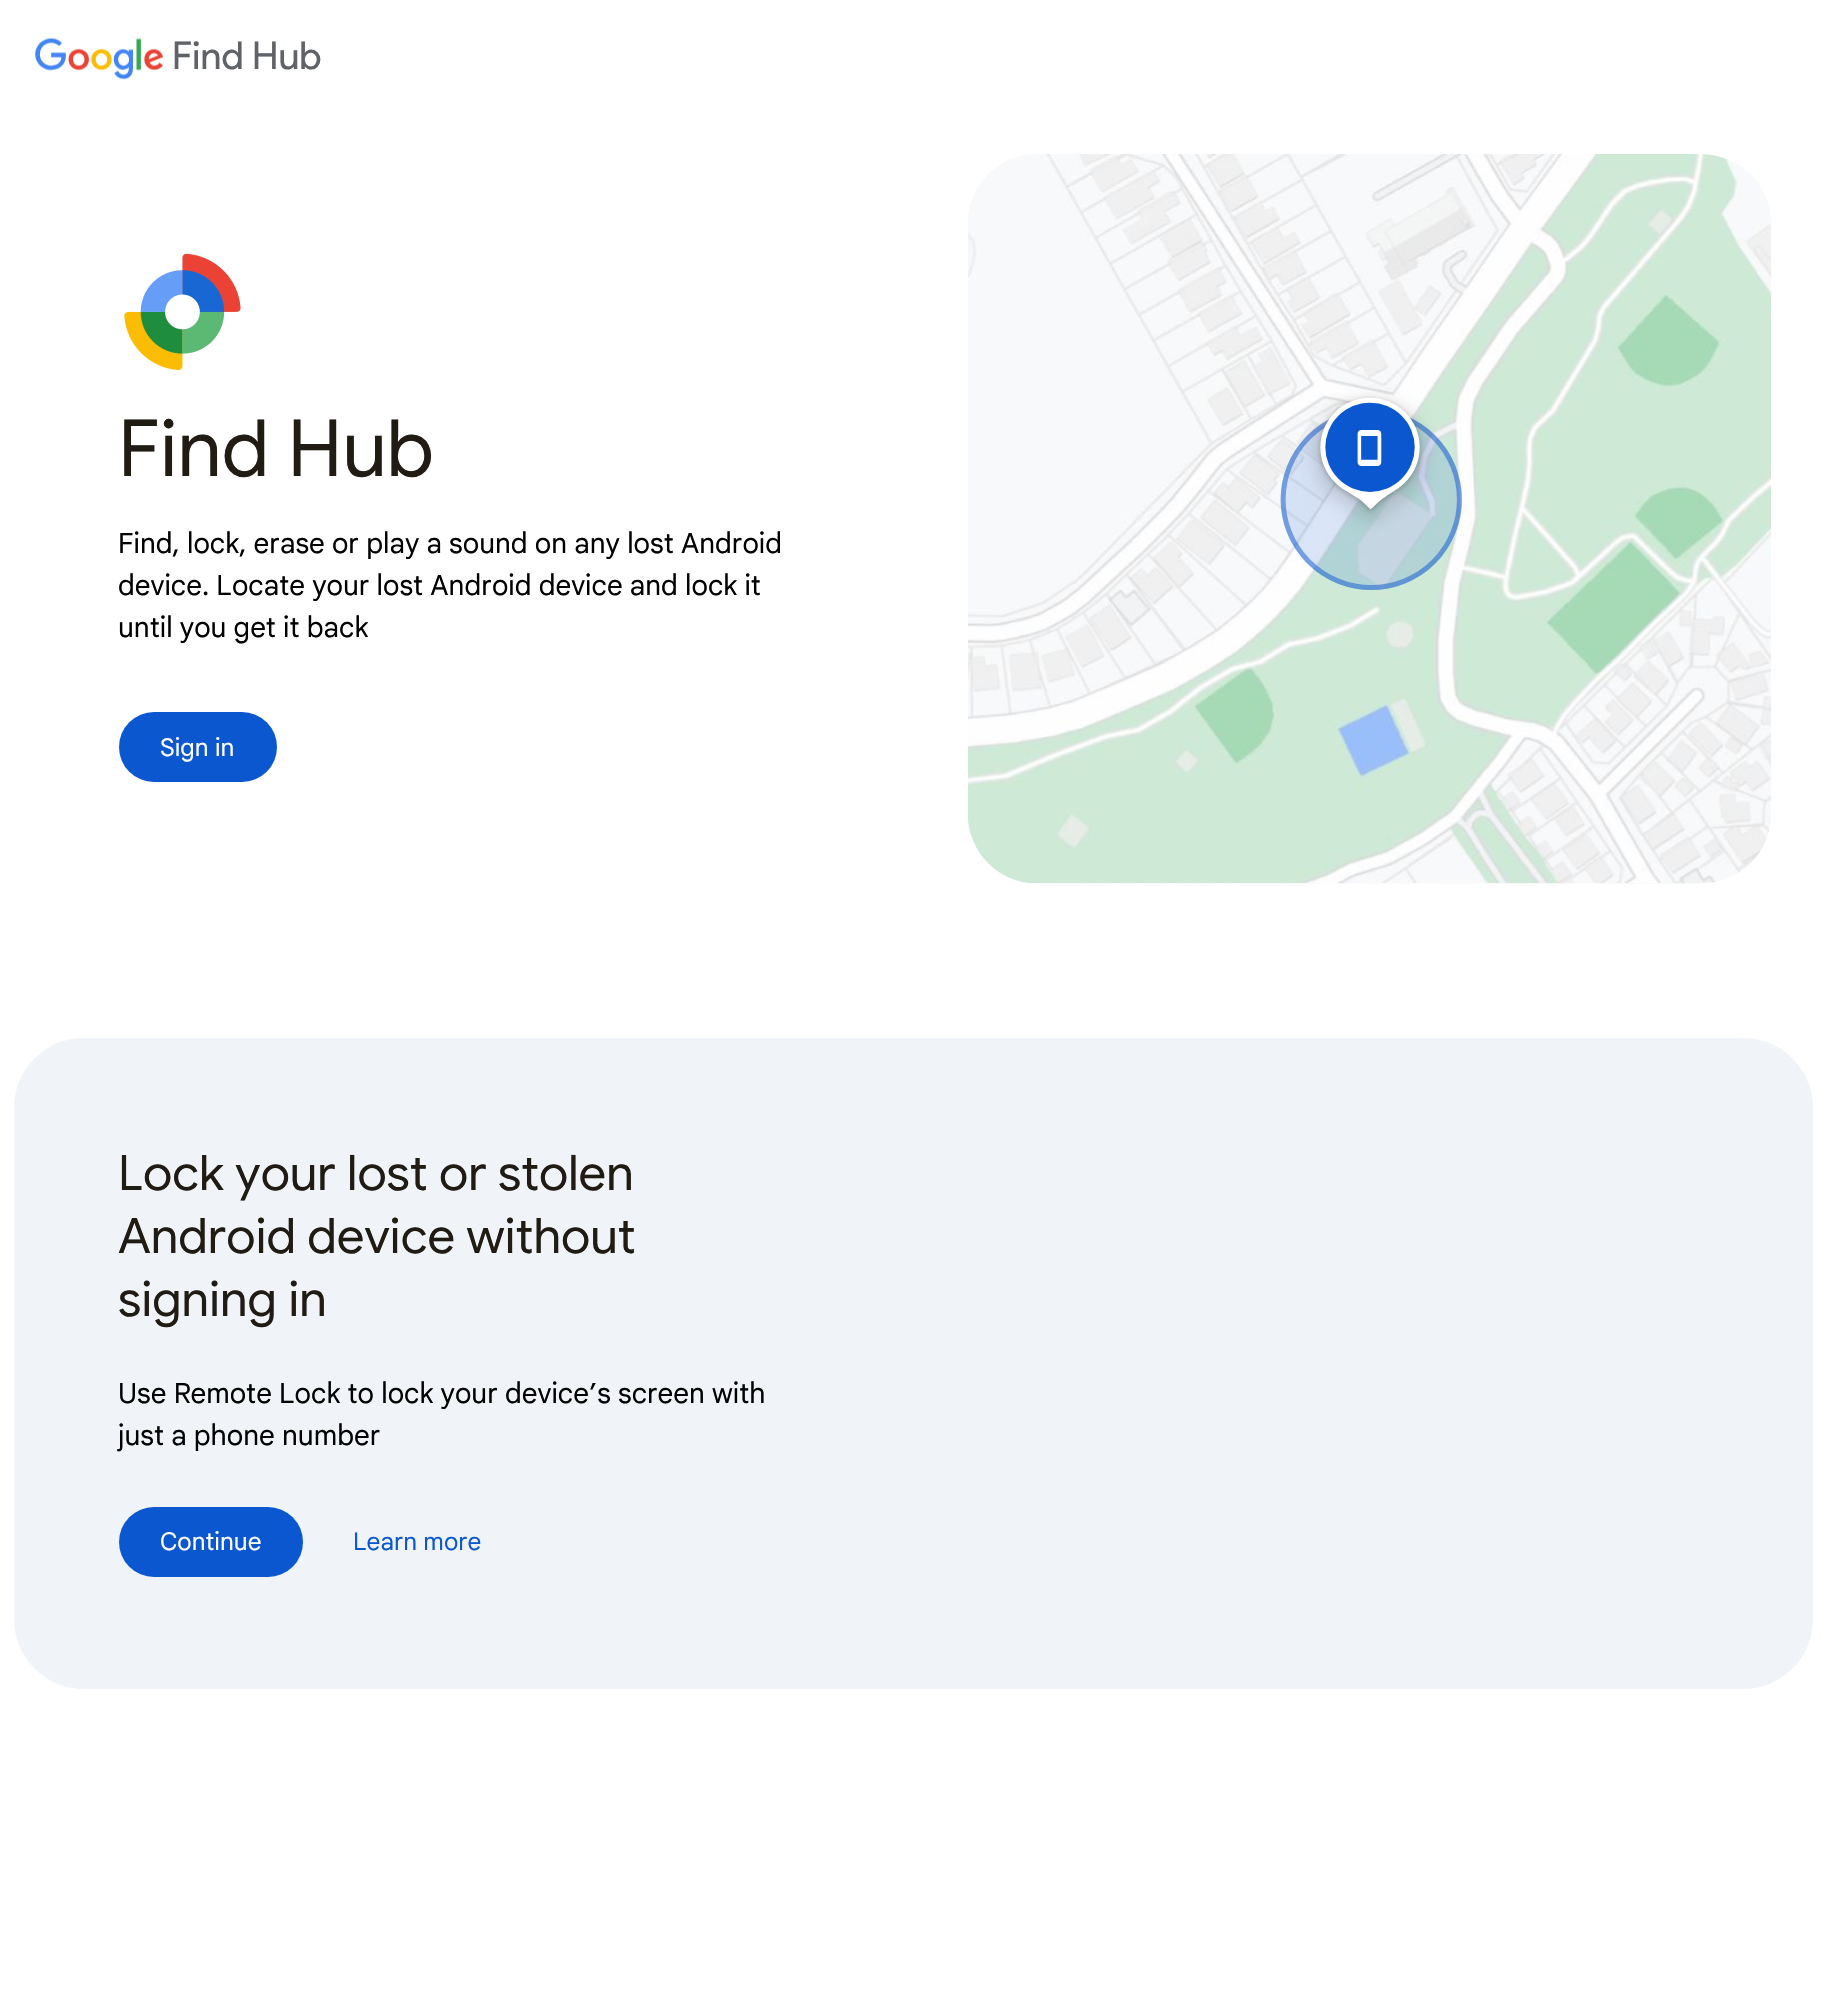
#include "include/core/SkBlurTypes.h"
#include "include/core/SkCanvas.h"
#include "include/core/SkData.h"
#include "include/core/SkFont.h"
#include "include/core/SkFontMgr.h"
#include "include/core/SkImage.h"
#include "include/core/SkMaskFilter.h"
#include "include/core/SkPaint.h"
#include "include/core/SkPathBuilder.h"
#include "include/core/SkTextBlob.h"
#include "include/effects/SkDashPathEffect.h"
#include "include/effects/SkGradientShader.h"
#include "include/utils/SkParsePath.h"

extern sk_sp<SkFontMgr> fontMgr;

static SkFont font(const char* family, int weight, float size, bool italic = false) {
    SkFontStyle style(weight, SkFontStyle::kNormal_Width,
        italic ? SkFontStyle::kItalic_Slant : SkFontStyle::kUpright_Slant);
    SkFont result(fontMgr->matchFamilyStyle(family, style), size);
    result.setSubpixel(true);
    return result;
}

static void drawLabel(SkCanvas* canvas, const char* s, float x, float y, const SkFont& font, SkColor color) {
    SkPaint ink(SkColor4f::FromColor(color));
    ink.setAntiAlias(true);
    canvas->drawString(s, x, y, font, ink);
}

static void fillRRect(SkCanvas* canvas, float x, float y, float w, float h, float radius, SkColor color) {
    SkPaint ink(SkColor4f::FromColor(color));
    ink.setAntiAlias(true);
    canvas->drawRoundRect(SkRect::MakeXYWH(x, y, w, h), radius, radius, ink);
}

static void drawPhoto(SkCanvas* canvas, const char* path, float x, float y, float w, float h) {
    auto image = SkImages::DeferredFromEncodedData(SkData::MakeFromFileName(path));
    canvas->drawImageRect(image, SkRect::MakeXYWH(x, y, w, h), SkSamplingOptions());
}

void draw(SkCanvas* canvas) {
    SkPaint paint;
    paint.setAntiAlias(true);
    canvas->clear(0xFFFFFFFF);
    drawPhoto(canvas, "assets/img1.png", 35, 38, 128, 42);
    SkFont font1 = font("Product Sans", 400, 38.5f);
    drawLabel(canvas, "Find Hub", 172, 69, font1, 0xFF5F6368);
    drawPhoto(canvas, "assets/img2.png", 124, 253, 117, 118);
    SkFont font2 = font("Google Sans", 400, 78.75f);
    drawLabel(canvas, "Find Hub", 118, 476, font2, 0xFF201B13);
    SkFont font3 = font("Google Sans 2", 400, 28);
    drawLabel(canvas, "Find, lock, erase or play a sound on any lost Android", 118, 553, font3, 0xFF000000);
    drawLabel(canvas, "device. Locate your lost Android device and lock it", 118, 595, font3, 0xFF000000);
    drawLabel(canvas, "until you get it back", 118, 637, font3, 0xFF000000);
    fillRRect(canvas, 119, 712, 158, 70, 35, 0xFF0B57D0);
    SkFont font4 = font("Google Sans 2", 400, 24.5f);
    drawLabel(canvas, "Sign in", 160, 756, font4, 0xFFFFFFFF);
    drawPhoto(canvas, "assets/img3.png", 968, 154, 803, 730);
    fillRRect(canvas, 14, 1038, 1799, 651, 70, 0xFFF0F4F9);
    SkFont font5 = font("Google Sans", 400, 49);
    drawLabel(canvas, "Lock your lost or stolen", 118, 1190, font5, 0xFF201B13);
    drawLabel(canvas, "Android device without", 118, 1253, font5, 0xFF201B13);
    drawLabel(canvas, "signing in", 118, 1316, font5, 0xFF201B13);
    drawLabel(canvas, "Use Remote Lock to lock your device’s screen with", 118, 1403, font3, 0xFF000000);
    drawLabel(canvas, "just a phone number", 118, 1445, font3, 0xFF000000);
    fillRRect(canvas, 119, 1507, 184, 70, 35, 0xFF0B57D0);
    drawLabel(canvas, "Continue", 160, 1550, font4, 0xFFFFFFFF);
    drawLabel(canvas, "Learn more", 353, 1550, font4, 0xFF0B57D0);
}
